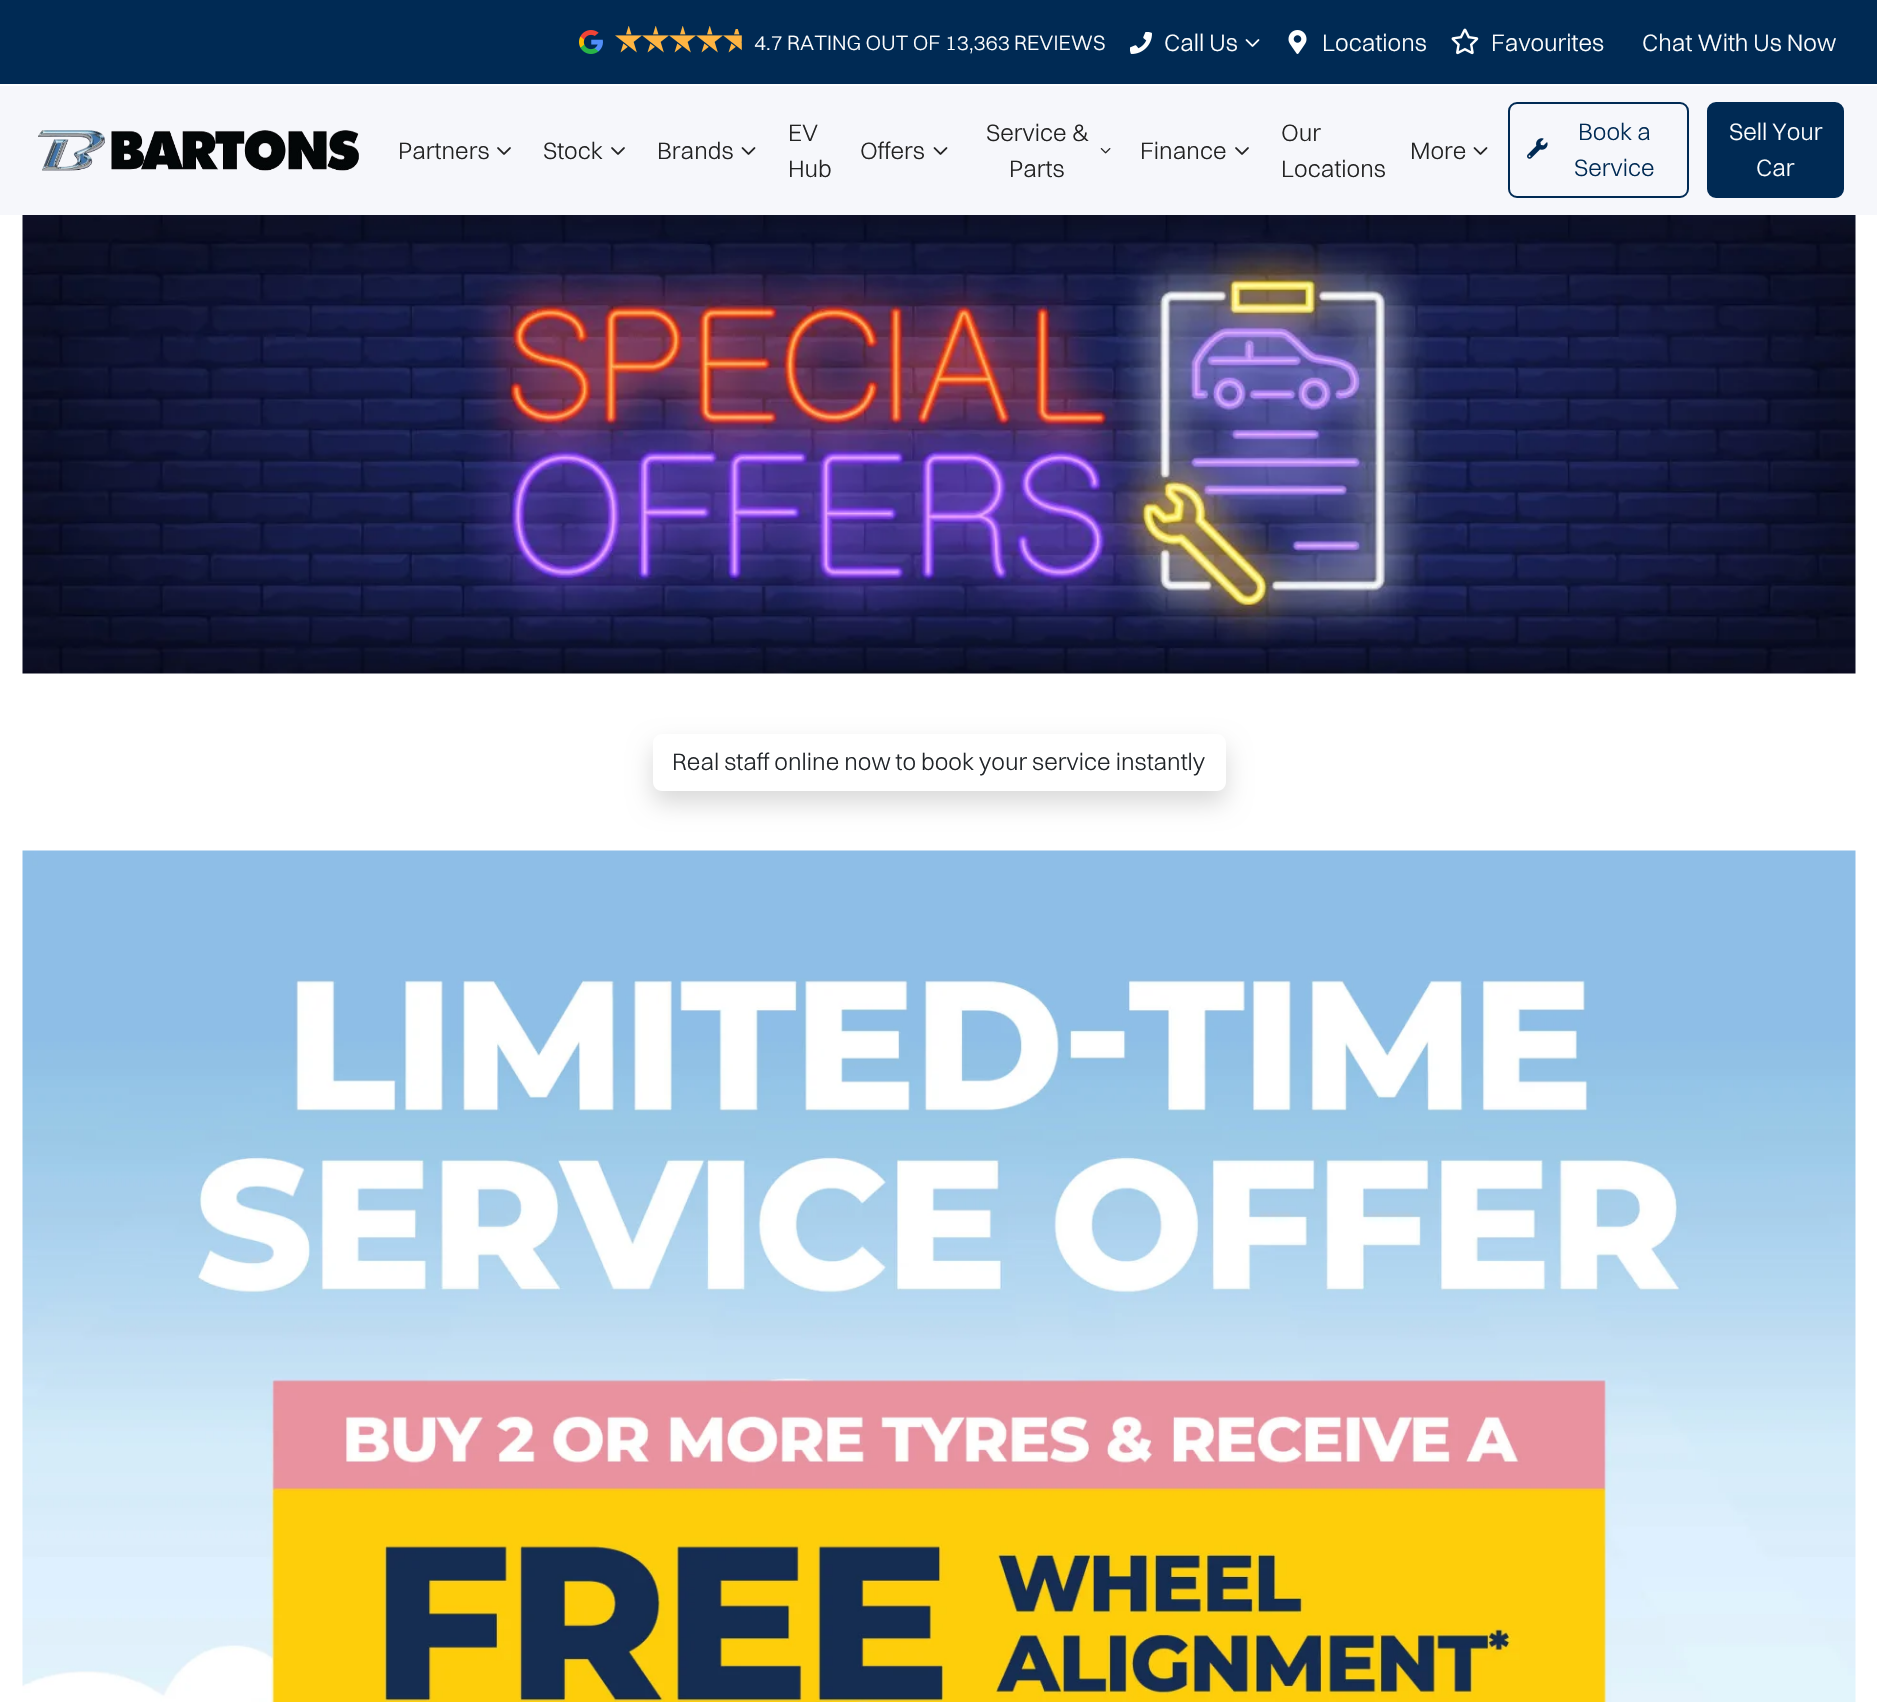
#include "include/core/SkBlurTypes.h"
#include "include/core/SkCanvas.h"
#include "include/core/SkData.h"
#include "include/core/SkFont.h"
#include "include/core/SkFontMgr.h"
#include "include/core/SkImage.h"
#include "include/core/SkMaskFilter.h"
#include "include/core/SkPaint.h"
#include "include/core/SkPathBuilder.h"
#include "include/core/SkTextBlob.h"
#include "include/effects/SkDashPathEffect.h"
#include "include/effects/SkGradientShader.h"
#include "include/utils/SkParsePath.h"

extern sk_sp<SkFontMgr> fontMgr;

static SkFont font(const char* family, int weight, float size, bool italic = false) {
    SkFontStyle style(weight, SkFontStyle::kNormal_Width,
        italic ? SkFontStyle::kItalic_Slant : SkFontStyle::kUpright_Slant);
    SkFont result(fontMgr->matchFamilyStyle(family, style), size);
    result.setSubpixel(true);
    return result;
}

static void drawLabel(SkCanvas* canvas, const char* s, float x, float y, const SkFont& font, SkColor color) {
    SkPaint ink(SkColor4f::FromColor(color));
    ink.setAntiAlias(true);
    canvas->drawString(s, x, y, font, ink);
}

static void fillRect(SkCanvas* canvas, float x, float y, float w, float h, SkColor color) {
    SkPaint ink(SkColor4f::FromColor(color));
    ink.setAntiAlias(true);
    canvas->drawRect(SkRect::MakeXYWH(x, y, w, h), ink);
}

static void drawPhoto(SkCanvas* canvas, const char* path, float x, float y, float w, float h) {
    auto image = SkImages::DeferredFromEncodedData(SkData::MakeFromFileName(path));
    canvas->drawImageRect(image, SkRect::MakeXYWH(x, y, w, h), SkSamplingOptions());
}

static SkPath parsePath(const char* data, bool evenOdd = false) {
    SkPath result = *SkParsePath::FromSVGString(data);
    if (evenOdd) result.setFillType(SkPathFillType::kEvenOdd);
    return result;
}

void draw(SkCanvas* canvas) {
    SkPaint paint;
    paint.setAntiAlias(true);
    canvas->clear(0xFFFFFFFF);
    fillRect(canvas, 0, 0, 1877, 84, 0xFF002A54);
    drawPhoto(canvas, "assets/img1.png", 579, 30, 24, 24);
    drawPhoto(canvas, "assets/img2.png", 615, 26, 27, 27);
    drawPhoto(canvas, "assets/img2.png", 642, 26, 27, 27);
    drawPhoto(canvas, "assets/img2.png", 669, 26, 27, 27);
    drawPhoto(canvas, "assets/img2.png", 696, 26, 27, 27);
    drawPhoto(canvas, "assets/img3.png", 723, 29, 19, 24);
    SkFont font1 = font("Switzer", 300, 21);
    drawLabel(canvas, "4.7 RATING OUT OF 13,363 REVIEWS", 754, 50, font1, 0xFFFFFFFF);
    drawPhoto(canvas, "assets/img4.png", 1130, 32, 22, 22);
    SkFont font2 = font("Switzer", 300, 24);
    drawLabel(canvas, "Call Us", 1164, 51, font2, 0xFFFFFFFF);
    drawPhoto(canvas, "assets/img5.png", 1245, 39, 15, 8);
    drawPhoto(canvas, "assets/img6.png", 1288, 30, 19, 24);
    drawLabel(canvas, "Locations", 1322, 51, font2, 0xFFFFFFFF);
    drawPhoto(canvas, "assets/img7.png", 1451, 28, 28, 27);
    drawLabel(canvas, "Favourites", 1491, 51, font2, 0xFFFFFFFF);
    drawLabel(canvas, "Chat With Us Now", 1642, 51, font2, 0xFFFFFFFF);
    fillRect(canvas, 0, 86, 1877, 129, 0xFFF6F7FB);
    drawPhoto(canvas, "assets/img8.png", 38, 130, 321, 41);
    drawLabel(canvas, "Partners", 398, 159, font2, 0xFF222222);
    drawPhoto(canvas, "assets/img9.png", 497, 147, 14, 8);
    drawLabel(canvas, "Stock", 543, 159, font2, 0xFF222222);
    drawPhoto(canvas, "assets/img9.png", 611, 147, 14, 8);
    drawLabel(canvas, "Brands", 657, 159, font2, 0xFF222222);
    drawPhoto(canvas, "assets/img10.png", 741, 147, 15, 8);
    drawLabel(canvas, "EV", 788, 141, font2, 0xFF222222);
    drawLabel(canvas, "Hub", 788, 177, font2, 0xFF222222);
    drawLabel(canvas, "Offers", 860, 159, font2, 0xFF222222);
    drawPhoto(canvas, "assets/img10.png", 933, 147, 15, 8);
    drawLabel(canvas, "Service &", 986, 141, font2, 0xFF222222);
    drawPhoto(canvas, "assets/img11.png", 1100, 148, 11, 6);
    drawLabel(canvas, "Parts", 1009, 177, font2, 0xFF222222);
    drawLabel(canvas, "Finance", 1140, 159, font2, 0xFF222222);
    drawPhoto(canvas, "assets/img9.png", 1235, 147, 14, 8);
    drawLabel(canvas, "Our", 1281, 141, font2, 0xFF222222);
    drawLabel(canvas, "Locations", 1281, 177, font2, 0xFF222222);
    drawLabel(canvas, "More", 1410, 159, font2, 0xFF222222);
    drawPhoto(canvas, "assets/img10.png", 1473, 147, 15, 8);
    paint.setStroke(true);
    paint.setStrokeWidth(2);
    paint.setColor(0xFF002A54);
    canvas->drawRoundRect(SkRect::MakeXYWH(1509, 103, 179, 94), 8, 8, paint);
    drawLabel(canvas, "Book a", 1578, 140, font2, 0xFF002A54);
    drawPhoto(canvas, "assets/img12.png", 1527, 138, 21, 21);
    drawLabel(canvas, "Service", 1574, 176, font2, 0xFF002A54);
    paint.setStroke(false);
    canvas->drawRoundRect(SkRect::MakeXYWH(1708, 103, 135, 94), 8, 8, paint);
    paint.setStroke(true);
    canvas->drawRoundRect(SkRect::MakeXYWH(1708, 103, 135, 94), 8, 8, paint);
    drawLabel(canvas, "Sell Your", 1729, 140, font2, 0xFFFFFFFF);
    drawLabel(canvas, "Car", 1756, 176, font2, 0xFFFFFFFF);
    drawPhoto(canvas, "assets/img13.png", 22, 215, 1834, 459);
    canvas->save();
    canvas->clipPath(parsePath("M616 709H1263V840H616ZM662 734H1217C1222 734 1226 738 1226 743V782C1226 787 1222 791 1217 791H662C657 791 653 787 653 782V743C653 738 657 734 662 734Z", true), true);
    paint.setStroke(false);
    paint.setColor(0x26000000);
    paint.setMaskFilter(SkMaskFilter::MakeBlur(kNormal_SkBlurStyle, 12));
    canvas->drawRoundRect(SkRect::MakeXYWH(653, 746, 573, 57), 9, 9, paint);
    paint.setMaskFilter(nullptr);
    canvas->restore();
    drawLabel(canvas, "Real staff online now to book your service instantly", 672, 770, font2, 0xFF212529);
    drawPhoto(canvas, "assets/img14.png", 22, 850, 1834, 852);
}
